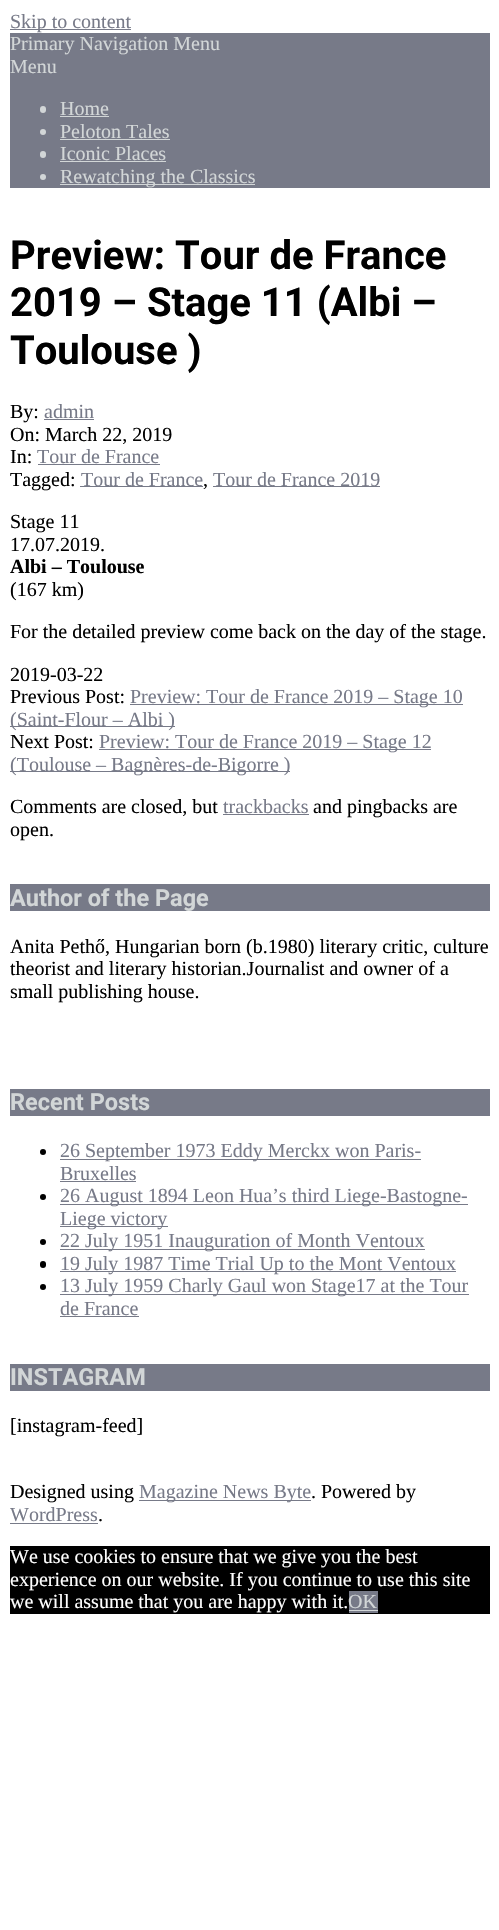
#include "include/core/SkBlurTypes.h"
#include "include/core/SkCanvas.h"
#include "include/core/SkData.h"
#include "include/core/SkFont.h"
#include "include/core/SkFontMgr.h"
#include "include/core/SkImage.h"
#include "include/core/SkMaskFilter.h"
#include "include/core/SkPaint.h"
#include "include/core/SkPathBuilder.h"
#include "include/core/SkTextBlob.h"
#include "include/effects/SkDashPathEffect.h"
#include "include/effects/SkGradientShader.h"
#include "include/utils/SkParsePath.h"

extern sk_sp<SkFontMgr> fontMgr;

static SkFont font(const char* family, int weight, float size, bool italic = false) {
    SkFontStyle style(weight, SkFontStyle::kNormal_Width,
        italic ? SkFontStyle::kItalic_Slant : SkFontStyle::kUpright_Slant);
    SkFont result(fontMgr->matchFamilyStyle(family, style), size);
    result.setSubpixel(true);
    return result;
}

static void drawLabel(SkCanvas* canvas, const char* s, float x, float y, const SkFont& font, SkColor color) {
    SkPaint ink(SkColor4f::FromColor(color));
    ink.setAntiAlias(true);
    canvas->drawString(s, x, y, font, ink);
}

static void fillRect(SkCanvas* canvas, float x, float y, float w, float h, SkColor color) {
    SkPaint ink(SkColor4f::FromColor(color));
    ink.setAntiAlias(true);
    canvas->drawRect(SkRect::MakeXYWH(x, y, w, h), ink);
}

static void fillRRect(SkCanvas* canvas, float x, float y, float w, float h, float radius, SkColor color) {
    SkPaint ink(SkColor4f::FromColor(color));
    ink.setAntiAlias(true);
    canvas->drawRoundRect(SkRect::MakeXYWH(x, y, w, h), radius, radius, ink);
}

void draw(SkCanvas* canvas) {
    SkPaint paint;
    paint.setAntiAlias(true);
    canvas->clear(0xFFFFFFFF);
    fillRect(canvas, 10, 29, 121, 1, 0xFF777A88);
    SkFont font1 = font("Liberation Serif", 400, 20);
    drawLabel(canvas, "Skip to content", 10, 28, font1, 0xFF777A88);
    fillRect(canvas, 10, 33, 480, 155, 0xFF777A88);
    drawLabel(canvas, "Primary Navigation Menu", 10, 50, font1, 0xFFD2D6D7);
    drawLabel(canvas, "Menu", 10, 73, font1, 0xFFD2D6D7);
    fillRRect(canvas, 40, 106, 6, 7, 3, 0xFFD2D6D7);
    drawLabel(canvas, "Home", 60, 115, font1, 0xFFD2D6D7);
    fillRect(canvas, 60, 116, 49, 1, 0xFFD2D6D7);
    paint.setColor(0xFFD2D6D7);
    canvas->drawCircle(43, 132, 3, paint);
    drawLabel(canvas, "Peloton Tales", 60, 138, font1, 0xFFD2D6D7);
    fillRect(canvas, 60, 139, 110, 1, 0xFFD2D6D7);
    fillRRect(canvas, 40, 151, 6, 7, 3, 0xFFD2D6D7);
    drawLabel(canvas, "Iconic Places", 60, 160, font1, 0xFFD2D6D7);
    fillRect(canvas, 60, 161, 106, 1, 0xFFD2D6D7);
    canvas->drawCircle(43, 177, 3, paint);
    fillRect(canvas, 60, 184, 195, 1, 0xFFD2D6D7);
    drawLabel(canvas, "Rewatching the Classics", 60, 183, font1, 0xFFD2D6D7);
    SkFont font2 = font("Roboto", 700, 40);
    drawLabel(canvas, "Preview: Tour de France", 10, 269, font2, 0xFF000000);
    drawLabel(canvas, "2019 – Stage 11 (Albi –", 10, 316, font2, 0xFF000000);
    drawLabel(canvas, "Toulouse )", 10, 364, font2, 0xFF000000);
    drawLabel(canvas, "By:", 10, 418, font1, 0xFF000000);
    drawLabel(canvas, "admin", 44, 418, font1, 0xFF777A88);
    fillRect(canvas, 44, 419, 50, 1, 0xFF777A88);
    drawLabel(canvas, "On: March 22, 2019", 10, 441, font1, 0xFF000000);
    drawLabel(canvas, "In:", 10, 463, font1, 0xFF000000);
    drawLabel(canvas, "Tour de France", 37, 463, font1, 0xFF777A88);
    fillRect(canvas, 38, 464, 122, 1, 0xFF777A88);
    drawLabel(canvas, "Tagged:", 10, 486, font1, 0xFF000000);
    fillRect(canvas, 80, 486, 123, 1, 0xFF777A88);
    drawLabel(canvas, "Tour de France", 81, 486, font1, 0xFF777A88);
    drawLabel(canvas, ",", 203, 486, font1, 0xFF000000);
    fillRect(canvas, 213, 486, 167, 1, 0xFF777A88);
    drawLabel(canvas, "Tour de France 2019", 213, 486, font1, 0xFF777A88);
    drawLabel(canvas, "Stage 11", 10, 528, font1, 0xFF000000);
    drawLabel(canvas, "17.07.2019.", 10, 551, font1, 0xFF000000);
    SkFont font3 = font("Liberation Serif", 700, 20);
    drawLabel(canvas, "Albi – Toulouse", 10, 573, font3, 0xFF000000);
    drawLabel(canvas, "(167 km)", 10, 596, font1, 0xFF000000);
    drawLabel(canvas, "For the detailed preview come back on the day of the stage.", 10, 638, font1, 0xFF000000);
    drawLabel(canvas, "2019-03-22", 10, 681, font1, 0xFF000000);
    drawLabel(canvas, "Previous Post:", 10, 703, font1, 0xFF000000);
    fillRect(canvas, 130, 704, 333, 1, 0xFF777A88);
    drawLabel(canvas, "Preview: Tour de France 2019 – Stage 10", 130, 703, font1, 0xFF777A88);
    fillRect(canvas, 10, 726, 165, 1, 0xFF777A88);
    drawLabel(canvas, "(Saint-Flour – Albi )", 10, 726, font1, 0xFF777A88);
    drawLabel(canvas, "Next Post:", 10, 748, font1, 0xFF000000);
    fillRect(canvas, 99, 749, 332, 1, 0xFF777A88);
    drawLabel(canvas, "Preview: Tour de France 2019 – Stage 12", 99, 748, font1, 0xFF777A88);
    fillRect(canvas, 10, 771, 280, 1, 0xFF777A88);
    drawLabel(canvas, "(Toulouse – Bagnères-de-Bigorre )", 10, 771, font1, 0xFF777A88);
    drawLabel(canvas, "Comments are closed, but", 10, 813, font1, 0xFF000000);
    drawLabel(canvas, "trackbacks", 223, 813, font1, 0xFF777A88);
    fillRect(canvas, 223, 814, 86, 1, 0xFF777A88);
    drawLabel(canvas, "and pingbacks are", 313, 813, font1, 0xFF000000);
    drawLabel(canvas, "open.", 10, 836, font1, 0xFF000000);
    fillRect(canvas, 10, 884, 480, 27, 0xFF777A88);
    SkFont font4 = font("Roboto", 700, 23.5f);
    drawLabel(canvas, "Author of the Page", 10, 906, font4, 0xFFD2D6D7);
    drawLabel(canvas, "Anita Pethő, Hungarian born (b.1980) literary critic, culture", 10, 953, font1, 0xFF000000);
    drawLabel(canvas, "theorist and literary historian.Journalist and owner of a", 10, 975, font1, 0xFF000000);
    drawLabel(canvas, "small publishing house.", 10, 998, font1, 0xFF000000);
    fillRect(canvas, 10, 1089, 480, 27, 0xFF777A88);
    drawLabel(canvas, "Recent Posts", 10, 1110, font4, 0xFFD2D6D7);
    paint.setColor(0xFF000000);
    canvas->drawCircle(43, 1152, 3, paint);
    fillRect(canvas, 60, 1159, 361, 1, 0xFF777A88);
    drawLabel(canvas, "26 September 1973 Eddy Merckx won Paris-", 60, 1157, font1, 0xFF777A88);
    drawLabel(canvas, "Bruxelles", 60, 1180, font1, 0xFF777A88);
    fillRect(canvas, 60, 1181, 76, 1, 0xFF777A88);
    canvas->drawCircle(43, 1197, 3, paint);
    fillRect(canvas, 60, 1204, 408, 1, 0xFF777A88);
    drawLabel(canvas, "26 August 1894 Leon Hua’s third Liege-Bastogne-", 60, 1202, font1, 0xFF777A88);
    fillRect(canvas, 60, 1226, 108, 1, 0xFF777A88);
    drawLabel(canvas, "Liege victory", 60, 1225, font1, 0xFF777A88);
    canvas->drawCircle(43, 1242, 3, paint);
    fillRect(canvas, 60, 1249, 365, 1, 0xFF777A88);
    drawLabel(canvas, "22 July 1951 Inauguration of Month Ventoux", 60, 1247, font1, 0xFF777A88);
    fillRRect(canvas, 40, 1261, 6, 7, 3, 0xFF000000);
    fillRect(canvas, 60, 1271, 396, 1, 0xFF777A88);
    drawLabel(canvas, "19 July 1987 Time Trial Up to the Mont Ventoux", 60, 1270, font1, 0xFF777A88);
    canvas->drawCircle(43, 1287, 3, paint);
    fillRect(canvas, 60, 1294, 409, 1, 0xFF777A88);
    drawLabel(canvas, "13 July 1959 Charly Gaul won Stage17 at the Tour", 60, 1292, font1, 0xFF777A88);
    drawLabel(canvas, "de France", 60, 1315, font1, 0xFF777A88);
    fillRect(canvas, 60, 1316, 79, 1, 0xFF777A88);
    fillRect(canvas, 10, 1364, 480, 27, 0xFF777A88);
    drawLabel(canvas, "INSTAGRAM", 10, 1385, font4, 0xFFD2D6D7);
    drawLabel(canvas, "[instagram-feed]", 10, 1432, font1, 0xFF000000);
    drawLabel(canvas, "Designed using", 10, 1498, font1, 0xFF000000);
    fillRect(canvas, 139, 1500, 172, 1, 0xFF777A88);
    drawLabel(canvas, "Magazine News Byte", 139, 1498, font1, 0xFF777A88);
    drawLabel(canvas, ". Powered by", 311, 1498, font1, 0xFF000000);
    drawLabel(canvas, "WordPress", 10, 1521, font1, 0xFF777A88);
    fillRect(canvas, 10, 1523, 88, 1, 0xFF777A88);
    drawLabel(canvas, ".", 98, 1521, font1, 0xFF000000);
    fillRect(canvas, 10, 1546, 480, 68, 0xFF000000);
    drawLabel(canvas, "We use cookies to ensure that we give you the best", 10, 1563, font1, 0xFFFFFFFF);
    drawLabel(canvas, "experience on our website. If you continue to use this site", 10, 1586, font1, 0xFFFFFFFF);
    drawLabel(canvas, "we will assume that you are happy with it.", 10, 1608, font1, 0xFFFFFFFF);
    fillRect(canvas, 349, 1591, 29, 22, 0xFF777A88);
    drawLabel(canvas, "OK", 348, 1608, font1, 0xFFD2D6D7);
    fillRect(canvas, 349, 1610, 29, 1, 0xFFD2D6D7);
}
